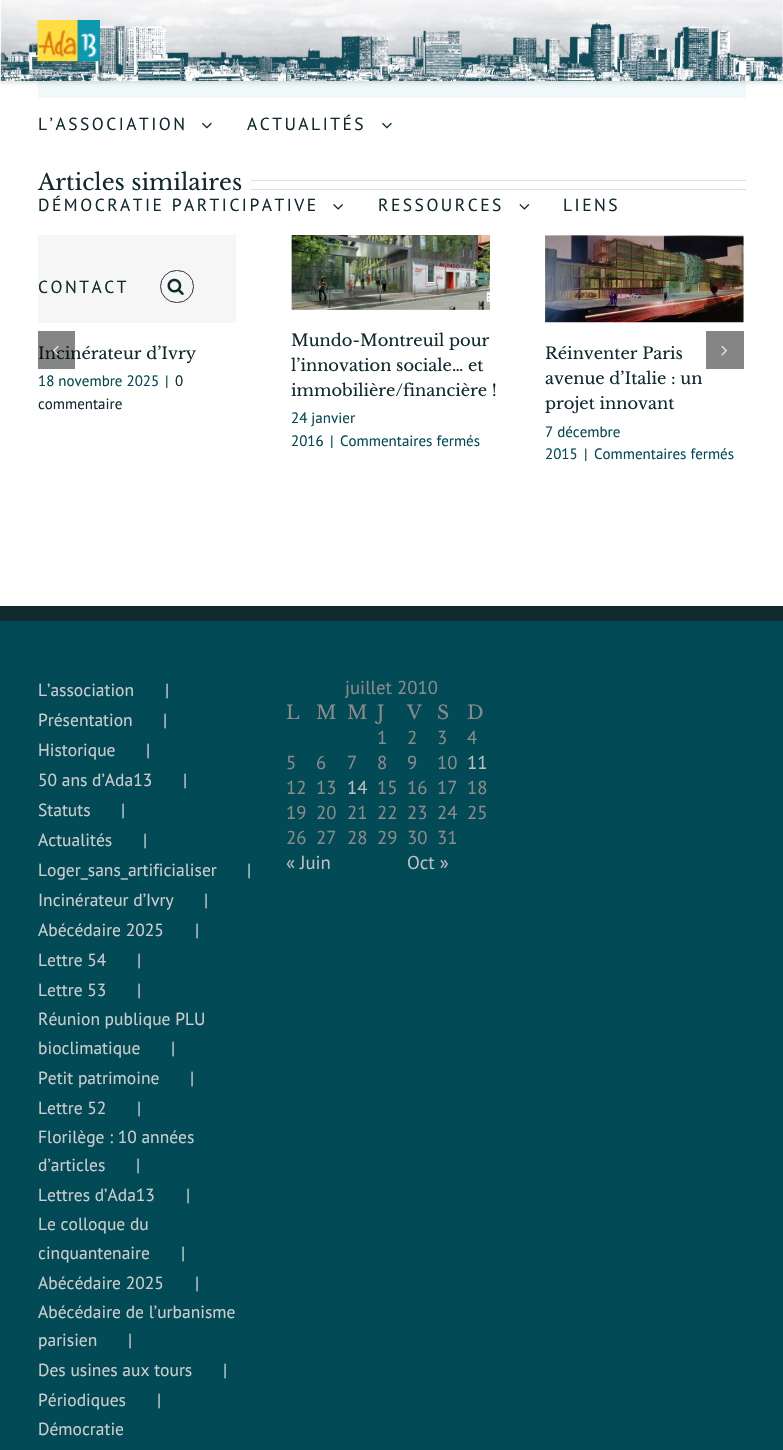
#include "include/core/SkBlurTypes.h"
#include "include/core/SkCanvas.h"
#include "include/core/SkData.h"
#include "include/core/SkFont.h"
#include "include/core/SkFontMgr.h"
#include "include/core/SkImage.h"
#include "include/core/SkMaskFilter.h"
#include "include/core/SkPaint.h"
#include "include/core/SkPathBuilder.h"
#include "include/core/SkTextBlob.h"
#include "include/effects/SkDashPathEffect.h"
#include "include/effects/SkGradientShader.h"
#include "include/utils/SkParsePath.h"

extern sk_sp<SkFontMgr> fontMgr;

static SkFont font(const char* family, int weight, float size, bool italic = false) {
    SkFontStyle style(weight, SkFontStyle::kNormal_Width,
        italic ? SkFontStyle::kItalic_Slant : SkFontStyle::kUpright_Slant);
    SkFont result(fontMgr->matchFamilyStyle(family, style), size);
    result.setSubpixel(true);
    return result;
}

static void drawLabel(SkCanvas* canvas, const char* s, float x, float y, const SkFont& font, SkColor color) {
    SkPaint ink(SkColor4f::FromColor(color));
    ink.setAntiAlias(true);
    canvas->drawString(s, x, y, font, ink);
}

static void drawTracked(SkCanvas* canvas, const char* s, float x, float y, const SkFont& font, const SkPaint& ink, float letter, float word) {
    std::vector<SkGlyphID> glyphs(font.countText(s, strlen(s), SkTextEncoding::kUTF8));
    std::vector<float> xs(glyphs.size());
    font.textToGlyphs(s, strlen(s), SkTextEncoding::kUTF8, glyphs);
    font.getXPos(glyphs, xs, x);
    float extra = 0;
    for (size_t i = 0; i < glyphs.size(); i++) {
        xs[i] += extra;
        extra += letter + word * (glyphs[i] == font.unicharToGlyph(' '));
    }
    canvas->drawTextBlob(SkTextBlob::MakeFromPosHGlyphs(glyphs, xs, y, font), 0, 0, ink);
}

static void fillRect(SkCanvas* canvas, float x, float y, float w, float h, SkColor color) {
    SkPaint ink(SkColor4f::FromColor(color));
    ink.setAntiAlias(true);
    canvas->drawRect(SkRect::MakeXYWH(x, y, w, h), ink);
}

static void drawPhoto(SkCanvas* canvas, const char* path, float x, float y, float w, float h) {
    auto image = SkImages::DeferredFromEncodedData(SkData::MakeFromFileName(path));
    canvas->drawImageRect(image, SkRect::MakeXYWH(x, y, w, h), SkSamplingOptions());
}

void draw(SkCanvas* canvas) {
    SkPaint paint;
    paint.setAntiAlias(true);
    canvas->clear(0xFFFFFFFF);
    fillRect(canvas, 38, 80, 708, 18, 0xFFF0F9FA);
    paint.setColor(0x1F000000);
    paint.setMaskFilter(SkMaskFilter::MakeBlur(kNormal_SkBlurStyle, 2));
    canvas->drawRect(SkRect::MakeXYWH(0, 1, 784, 82), paint);
    paint.setMaskFilter(nullptr);
    drawPhoto(canvas, "assets/img1.png", 0, 0, 783, 81);
    drawPhoto(canvas, "assets/img2.png", 37, 20, 63, 42);
    SkFont font1 = font("PT Sans", 400, 17.5f);
    paint.setColor(0xFF102A2E);
    drawTracked(canvas, "L’ASSOCIATION", 38, 130, font1, paint, 2.5f, 0);
    drawPhoto(canvas, "assets/img3.png", 202, 122, 10, 7);
    drawTracked(canvas, "ACTUALITÉS", 247, 130, font1, paint, 2.5f, 0);
    drawPhoto(canvas, "assets/img3.png", 382, 122, 10, 7);
    drawTracked(canvas, "DÉMOCRATIE PARTICIPATIVE", 38, 211, font1, paint, 2.5f, 0);
    drawPhoto(canvas, "assets/img4.png", 333, 204, 10, 6);
    drawTracked(canvas, "RESSOURCES", 378, 211, font1, paint, 2.5f, 0);
    drawPhoto(canvas, "assets/img5.png", 519, 204, 11, 6);
    drawTracked(canvas, "LIENS", 563, 211, font1, paint, 2.5f, 0);
    fillRect(canvas, 38, 235, 198, 88, 0xFFF6F6F6);
    drawTracked(canvas, "CONTACT", 38, 293, font1, paint, 2.5f, 0);
    paint.setStroke(true);
    paint.setStrokeWidth(1);
    paint.setColor(0xFF333333);
    canvas->drawRoundRect(SkRect::MakeXYWH(160.5f, 270.5f, 33, 32), 16, 16, paint);
    drawPhoto(canvas, "assets/img6.png", 167, 278, 17, 17);
    SkFont font2 = font("Libre Baskerville", 400, 22.5f);
    drawLabel(canvas, "Articles similaires", 38, 190, font2, 0xFF102A2E);
    fillRect(canvas, 251, 180, 495, 1, 0xFFE0DEDE);
    fillRect(canvas, 251, 189, 495, 1, 0xFFE0DEDE);
    SkFont font3 = font("Libre Baskerville", 400, 16.25f);
    drawLabel(canvas, "Incinérateur d’Ivry", 38, 359, font3, 0xFF102A2E);
    fillRect(canvas, 38, 331, 37, 38, 0x7A000000);
    drawPhoto(canvas, "assets/img7.png", 53, 345, 6, 11);
    fillRect(canvas, 706, 331, 38, 38, 0xFF858585);
    drawPhoto(canvas, "assets/img8.png", 721, 345, 6, 11);
    SkFont font4 = font("PT Sans", 400, 15);
    drawLabel(canvas, "18 novembre 2025", 38, 386, font4, 0xFF014A56);
    drawLabel(canvas, "|", 165, 386, font4, 0xFF014A56);
    drawLabel(canvas, "0", 175, 386, font4, 0xFF102A2E);
    drawLabel(canvas, "commentaire", 38, 409, font4, 0xFF102A2E);
    drawPhoto(canvas, "assets/img9.png", 291, 235, 199, 75);
    drawLabel(canvas, "Mundo-Montreuil pour", 291, 346, font3, 0xFF102A2E);
    drawLabel(canvas, "l’innovation sociale… et", 291, 371, font3, 0xFF102A2E);
    drawLabel(canvas, "immobilière/financière !", 291, 396, font3, 0xFF102A2E);
    drawLabel(canvas, "24 janvier", 291, 423, font4, 0xFF014A56);
    drawLabel(canvas, "2016", 291, 446, font4, 0xFF014A56);
    drawLabel(canvas, "|", 330, 446, font4, 0xFF014A56);
    drawLabel(canvas, "Commentaires fermés", 340, 446, font4, 0xFF014A56);
    drawPhoto(canvas, "assets/img10.png", 545, 235, 199, 88);
    drawLabel(canvas, "Réinventer Paris", 545, 359, font3, 0xFF102A2E);
    drawLabel(canvas, "avenue d’Italie : un", 545, 384, font3, 0xFF102A2E);
    drawLabel(canvas, "projet innovant", 545, 409, font3, 0xFF102A2E);
    drawLabel(canvas, "7 décembre", 545, 437, font4, 0xFF014A56);
    drawLabel(canvas, "2015", 545, 459, font4, 0xFF014A56);
    drawLabel(canvas, "|", 584, 459, font4, 0xFF014A56);
    drawLabel(canvas, "Commentaires fermés", 594, 459, font4, 0xFF014A56);
    fillRect(canvas, 0, 621, 783, 829, 0xFF014A56);
    fillRect(canvas, 0, 606, 783, 15, 0xFF102A2E);
    drawLabel(canvas, "L’association", 38, 696, font1, 0xFFCCCCCC);
    drawLabel(canvas, "|", 165, 696, font1, 0xFFCCCCCC);
    drawLabel(canvas, "Présentation", 38, 726, font1, 0xFFCCCCCC);
    drawLabel(canvas, "|", 163, 726, font1, 0xFFCCCCCC);
    drawLabel(canvas, "Historique", 38, 756, font1, 0xFFCCCCCC);
    drawLabel(canvas, "|", 146, 756, font1, 0xFFCCCCCC);
    drawLabel(canvas, "50 ans d’Ada13", 38, 786, font1, 0xFFCCCCCC);
    drawLabel(canvas, "|", 183, 786, font1, 0xFFCCCCCC);
    drawLabel(canvas, "Statuts", 38, 816, font1, 0xFFCCCCCC);
    drawLabel(canvas, "|", 121, 816, font1, 0xFFCCCCCC);
    drawLabel(canvas, "Actualités", 38, 846, font1, 0xFFCCCCCC);
    drawLabel(canvas, "|", 143, 846, font1, 0xFFCCCCCC);
    drawLabel(canvas, "Loger_sans_artificialiser", 38, 876, font1, 0xFFCCCCCC);
    drawLabel(canvas, "|", 247, 876, font1, 0xFFCCCCCC);
    drawLabel(canvas, "Incinérateur d’Ivry", 38, 906, font1, 0xFFCCCCCC);
    drawLabel(canvas, "|", 204, 906, font1, 0xFFCCCCCC);
    drawLabel(canvas, "Abécédaire 2025", 38, 936, font1, 0xFFCCCCCC);
    drawLabel(canvas, "|", 195, 936, font1, 0xFFCCCCCC);
    drawLabel(canvas, "Lettre 54", 38, 966, font1, 0xFFCCCCCC);
    drawLabel(canvas, "|", 137, 966, font1, 0xFFCCCCCC);
    drawLabel(canvas, "Lettre 53", 38, 996, font1, 0xFFCCCCCC);
    drawLabel(canvas, "|", 137, 996, font1, 0xFFCCCCCC);
    drawLabel(canvas, "Réunion publique PLU", 38, 1025, font1, 0xFFCCCCCC);
    drawLabel(canvas, "bioclimatique", 38, 1054, font1, 0xFFCCCCCC);
    drawLabel(canvas, "|", 171, 1054, font1, 0xFFCCCCCC);
    drawLabel(canvas, "Petit patrimoine", 38, 1084, font1, 0xFFCCCCCC);
    drawLabel(canvas, "|", 190, 1084, font1, 0xFFCCCCCC);
    drawLabel(canvas, "Lettre 52", 38, 1114, font1, 0xFFCCCCCC);
    drawLabel(canvas, "|", 137, 1114, font1, 0xFFCCCCCC);
    drawLabel(canvas, "Florilège : 10 années", 38, 1143, font1, 0xFFCCCCCC);
    drawLabel(canvas, "d’articles", 38, 1171, font1, 0xFFCCCCCC);
    drawLabel(canvas, "|", 136, 1171, font1, 0xFFCCCCCC);
    drawLabel(canvas, "Lettres d’Ada13", 38, 1201, font1, 0xFFCCCCCC);
    drawLabel(canvas, "|", 186, 1201, font1, 0xFFCCCCCC);
    drawLabel(canvas, "Le colloque du", 38, 1230, font1, 0xFFCCCCCC);
    drawLabel(canvas, "cinquantenaire", 38, 1259, font1, 0xFFCCCCCC);
    drawLabel(canvas, "|", 181, 1259, font1, 0xFFCCCCCC);
    drawLabel(canvas, "Abécédaire 2025", 38, 1289, font1, 0xFFCCCCCC);
    drawLabel(canvas, "|", 195, 1289, font1, 0xFFCCCCCC);
    drawLabel(canvas, "Abécédaire de l’urbanisme", 38, 1318, font1, 0xFFCCCCCC);
    drawLabel(canvas, "parisien", 38, 1346, font1, 0xFFCCCCCC);
    drawLabel(canvas, "|", 128, 1346, font1, 0xFFCCCCCC);
    drawLabel(canvas, "Des usines aux tours", 38, 1376, font1, 0xFFCCCCCC);
    drawLabel(canvas, "|", 223, 1376, font1, 0xFFCCCCCC);
    drawLabel(canvas, "Périodiques", 38, 1406, font1, 0xFFCCCCCC);
    drawLabel(canvas, "|", 157, 1406, font1, 0xFFCCCCCC);
    drawLabel(canvas, "Démocratie", 38, 1435, font1, 0xFFCCCCCC);
    SkFont font5 = font("PT Sans", 400, 18.75f);
    drawLabel(canvas, "juillet 2010", 345, 694, font5, 0xFF8C8989);
    SkFont font6 = font("Libre Baskerville", 400, 18.75f);
    drawLabel(canvas, "L", 286, 719, font6, 0xFF8C8989);
    drawLabel(canvas, "M", 316, 719, font6, 0xFF8C8989);
    drawLabel(canvas, "M", 347, 719, font6, 0xFF8C8989);
    drawLabel(canvas, "J", 377, 719, font6, 0xFF8C8989);
    drawLabel(canvas, "V", 407, 719, font6, 0xFF8C8989);
    drawLabel(canvas, "S", 437, 719, font6, 0xFF8C8989);
    drawLabel(canvas, "D", 467, 719, font6, 0xFF8C8989);
    drawLabel(canvas, "1", 377, 744, font5, 0xFF8C8989);
    drawLabel(canvas, "2", 407, 744, font5, 0xFF8C8989);
    drawLabel(canvas, "3", 437, 744, font5, 0xFF8C8989);
    drawLabel(canvas, "4", 467, 744, font5, 0xFF8C8989);
    drawLabel(canvas, "5", 286, 769, font5, 0xFF8C8989);
    drawLabel(canvas, "6", 316, 769, font5, 0xFF8C8989);
    drawLabel(canvas, "7", 347, 769, font5, 0xFF8C8989);
    drawLabel(canvas, "8", 377, 769, font5, 0xFF8C8989);
    drawLabel(canvas, "9", 407, 769, font5, 0xFF8C8989);
    drawLabel(canvas, "10", 437, 769, font5, 0xFF8C8989);
    drawLabel(canvas, "11", 467, 769, font5, 0xFFBFBFBF);
    drawLabel(canvas, "12", 286, 794, font5, 0xFF8C8989);
    drawLabel(canvas, "13", 316, 794, font5, 0xFF8C8989);
    drawLabel(canvas, "14", 347, 794, font5, 0xFFBFBFBF);
    drawLabel(canvas, "15", 377, 794, font5, 0xFF8C8989);
    drawLabel(canvas, "16", 407, 794, font5, 0xFF8C8989);
    drawLabel(canvas, "17", 437, 794, font5, 0xFF8C8989);
    drawLabel(canvas, "18", 467, 794, font5, 0xFF8C8989);
    drawLabel(canvas, "19", 286, 819, font5, 0xFF8C8989);
    drawLabel(canvas, "20", 316, 819, font5, 0xFF8C8989);
    drawLabel(canvas, "21", 347, 819, font5, 0xFF8C8989);
    drawLabel(canvas, "22", 377, 819, font5, 0xFF8C8989);
    drawLabel(canvas, "23", 407, 819, font5, 0xFF8C8989);
    drawLabel(canvas, "24", 437, 819, font5, 0xFF8C8989);
    drawLabel(canvas, "25", 467, 819, font5, 0xFF8C8989);
    drawLabel(canvas, "26", 286, 844, font5, 0xFF8C8989);
    drawLabel(canvas, "27", 316, 844, font5, 0xFF8C8989);
    drawLabel(canvas, "28", 347, 844, font5, 0xFF8C8989);
    drawLabel(canvas, "29", 377, 844, font5, 0xFF8C8989);
    drawLabel(canvas, "30", 407, 844, font5, 0xFF8C8989);
    drawLabel(canvas, "31", 437, 844, font5, 0xFF8C8989);
    drawLabel(canvas, "« Juin", 286, 869, font5, 0xFFBFBFBF);
    drawLabel(canvas, "Oct »", 407, 869, font5, 0xFFBFBFBF);
}
